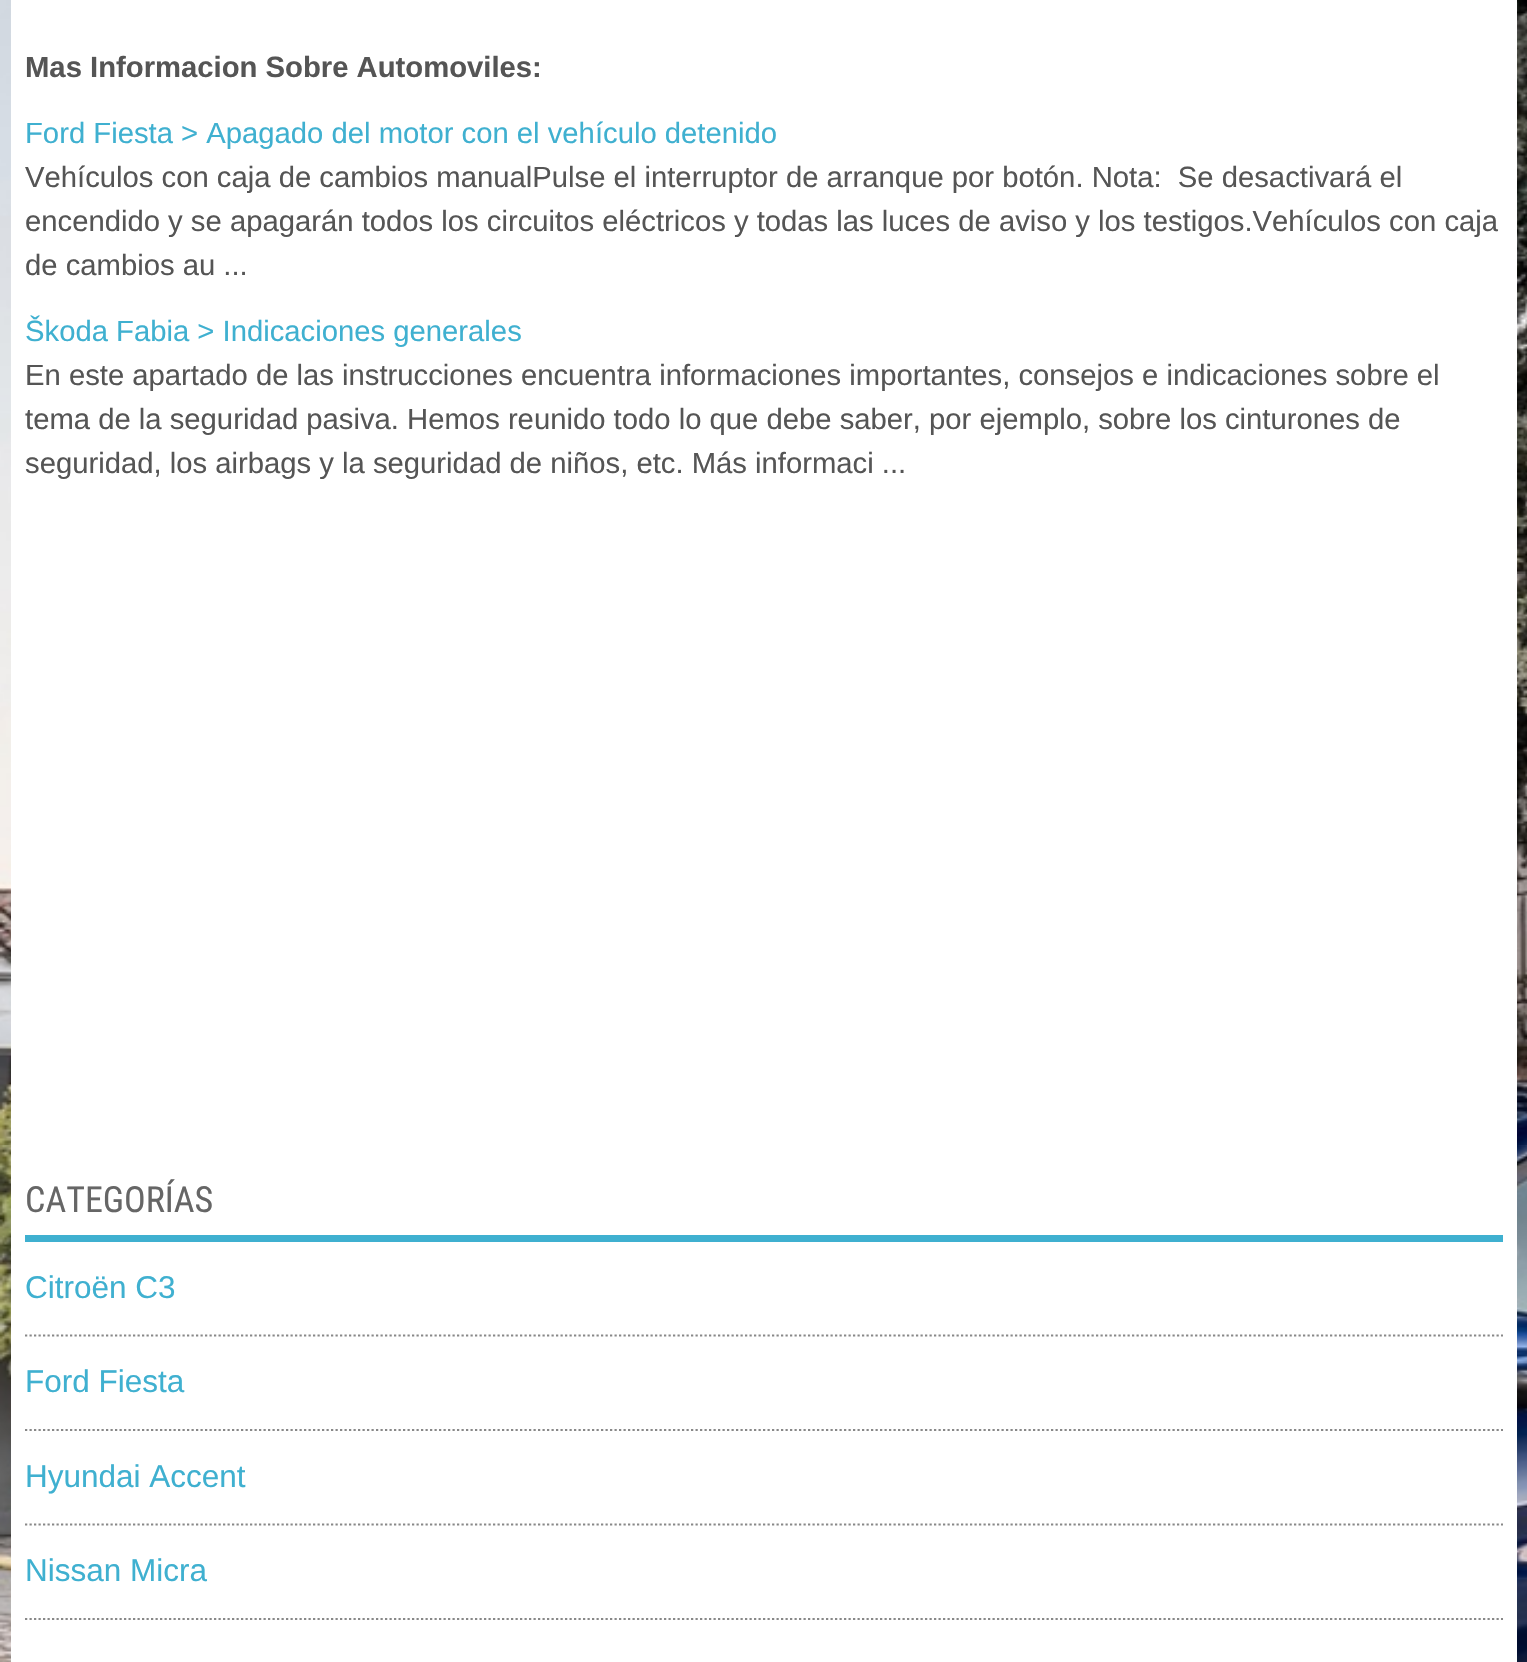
#include "include/core/SkBlurTypes.h"
#include "include/core/SkCanvas.h"
#include "include/core/SkData.h"
#include "include/core/SkFont.h"
#include "include/core/SkFontMgr.h"
#include "include/core/SkImage.h"
#include "include/core/SkMaskFilter.h"
#include "include/core/SkPaint.h"
#include "include/core/SkPathBuilder.h"
#include "include/core/SkTextBlob.h"
#include "include/effects/SkDashPathEffect.h"
#include "include/effects/SkGradientShader.h"
#include "include/utils/SkParsePath.h"

extern sk_sp<SkFontMgr> fontMgr;

static SkFont font(const char* family, int weight, float size, bool italic = false) {
    SkFontStyle style(weight, SkFontStyle::kNormal_Width,
        italic ? SkFontStyle::kItalic_Slant : SkFontStyle::kUpright_Slant);
    SkFont result(fontMgr->matchFamilyStyle(family, style), size);
    result.setSubpixel(true);
    return result;
}

static void drawLabel(SkCanvas* canvas, const char* s, float x, float y, const SkFont& font, SkColor color) {
    SkPaint ink(SkColor4f::FromColor(color));
    ink.setAntiAlias(true);
    canvas->drawString(s, x, y, font, ink);
}

static void fillRect(SkCanvas* canvas, float x, float y, float w, float h, SkColor color) {
    SkPaint ink(SkColor4f::FromColor(color));
    ink.setAntiAlias(true);
    canvas->drawRect(SkRect::MakeXYWH(x, y, w, h), ink);
}

static void drawPhoto(SkCanvas* canvas, const char* path, float x, float y, float w, float h) {
    auto image = SkImages::DeferredFromEncodedData(SkData::MakeFromFileName(path));
    canvas->drawImageRect(image, SkRect::MakeXYWH(x, y, w, h), SkSamplingOptions());
}

static SkPath parsePath(const char* data, bool evenOdd = false) {
    SkPath result = *SkParsePath::FromSVGString(data);
    if (evenOdd) result.setFillType(SkPathFillType::kEvenOdd);
    return result;
}

void draw(SkCanvas* canvas) {
    SkPaint paint;
    paint.setAntiAlias(true);
    canvas->clear(0xFFFFFFFF);
    drawPhoto(canvas, "assets/img1.png", 0, 0, 1527, 1662);
    fillRect(canvas, 11, 0, 1506, 1662, 0xFFFFFFFF);
    SkFont font1 = font("Liberation Sans", 700, 29.25f);
    drawLabel(canvas, "Mas Informacion Sobre Automoviles:", 25, 77, font1, 0xFF555555);
    SkFont font2 = font("Liberation Sans", 400, 29.25f);
    drawLabel(canvas, "Ford Fiesta > Apagado del motor con el vehículo detenido", 25, 143, font2, 0xFF3FB0D0);
    drawLabel(canvas, "Vehículos con caja de cambios manualPulse el interruptor de arranque por botón. Nota:  Se desactivará el", 25, 187, font2, 0xFF555555);
    drawLabel(canvas, "encendido y se apagarán todos los circuitos eléctricos y todas las luces de aviso y los testigos.Vehículos con caja", 25, 231, font2, 0xFF555555);
    drawLabel(canvas, "de cambios au ...", 25, 275, font2, 0xFF555555);
    drawLabel(canvas, "Škoda Fabia > Indicaciones generales", 25, 341, font2, 0xFF3FB0D0);
    drawLabel(canvas, "En este apartado de las instrucciones encuentra informaciones importantes, consejos e indicaciones sobre el", 25, 385, font2, 0xFF555555);
    drawLabel(canvas, "tema de la seguridad pasiva. Hemos reunido todo lo que debe saber, por ejemplo, sobre los cinturones de", 25, 429, font2, 0xFF555555);
    drawLabel(canvas, "seguridad, los airbags y la seguridad de niños, etc. Más informaci ...", 25, 473, font2, 0xFF555555);
    fillRect(canvas, 25, 1235, 1478, 7, 0xFF3FB0D0);
    SkFont font3 = font("Roboto Condensed", 400, 36);
    drawLabel(canvas, "CATEGORÍAS", 25, 1212, font3, 0xFF666666);
    paint.setStroke(true);
    paint.setStrokeWidth(2.2f);
    paint.setColor(0xFF888888);
    paint.setPathEffect(SkDashPathEffect::Make({{2.25f, 2.25f}}, 0));
    canvas->drawPath(parsePath("M25 1335.5H1503"), paint);
    paint.setPathEffect(nullptr);
    SkFont font4 = font("Liberation Sans", 400, 31.5f);
    drawLabel(canvas, "Citroën C3", 25, 1298, font4, 0xFF3FB0D0);
    paint.setPathEffect(SkDashPathEffect::Make({{2.25f, 2.25f}}, 0));
    canvas->drawPath(parsePath("M25 1430H1503"), paint);
    paint.setPathEffect(nullptr);
    drawLabel(canvas, "Ford Fiesta", 25, 1392, font4, 0xFF3FB0D0);
    paint.setPathEffect(SkDashPathEffect::Make({{2.25f, 2.25f}}, 0));
    canvas->drawPath(parsePath("M25 1524.5H1503"), paint);
    paint.setPathEffect(nullptr);
    drawLabel(canvas, "Hyundai Accent", 25, 1487, font4, 0xFF3FB0D0);
    paint.setPathEffect(SkDashPathEffect::Make({{2.25f, 2.25f}}, 0));
    canvas->drawPath(parsePath("M25 1619H1503"), paint);
    paint.setPathEffect(nullptr);
    drawLabel(canvas, "Nissan Micra", 25, 1581, font4, 0xFF3FB0D0);
}
